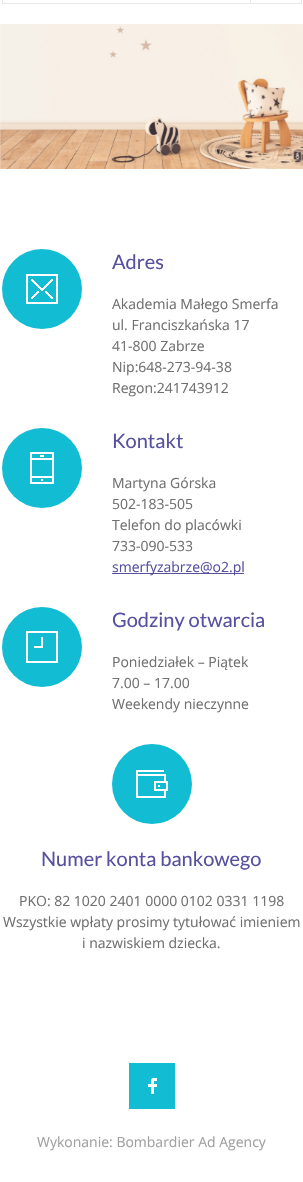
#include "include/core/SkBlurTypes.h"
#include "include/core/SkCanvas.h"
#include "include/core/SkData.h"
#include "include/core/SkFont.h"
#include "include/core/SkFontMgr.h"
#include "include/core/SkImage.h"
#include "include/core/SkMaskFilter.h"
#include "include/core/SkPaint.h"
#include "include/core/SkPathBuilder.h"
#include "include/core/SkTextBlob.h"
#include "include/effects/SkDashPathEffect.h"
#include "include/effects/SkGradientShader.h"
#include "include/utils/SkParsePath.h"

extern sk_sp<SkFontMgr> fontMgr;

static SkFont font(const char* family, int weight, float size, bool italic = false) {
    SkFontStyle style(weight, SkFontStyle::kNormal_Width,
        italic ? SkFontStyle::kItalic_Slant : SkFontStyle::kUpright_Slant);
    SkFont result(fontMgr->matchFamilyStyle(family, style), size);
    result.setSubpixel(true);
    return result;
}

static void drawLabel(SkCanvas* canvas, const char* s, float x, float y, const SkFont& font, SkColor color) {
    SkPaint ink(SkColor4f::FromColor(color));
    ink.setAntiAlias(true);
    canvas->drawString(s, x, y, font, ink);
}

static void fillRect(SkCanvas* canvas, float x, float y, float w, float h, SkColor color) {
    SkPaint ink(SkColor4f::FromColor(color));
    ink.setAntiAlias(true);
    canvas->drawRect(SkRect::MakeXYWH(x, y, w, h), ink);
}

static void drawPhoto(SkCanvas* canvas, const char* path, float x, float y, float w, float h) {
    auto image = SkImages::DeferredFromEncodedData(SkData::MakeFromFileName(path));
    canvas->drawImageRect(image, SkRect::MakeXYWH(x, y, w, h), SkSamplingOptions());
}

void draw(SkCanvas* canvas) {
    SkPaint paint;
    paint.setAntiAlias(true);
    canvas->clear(0xFFFFFFFF);
    paint.setStroke(true);
    paint.setStrokeWidth(1);
    paint.setColor(0xFFE8E8E8);
    canvas->drawRect(SkRect::MakeXYWH(2.5f, -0.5f, 299, 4), paint);
    fillRect(canvas, 250, 0, 1, 3, 0xFFE8E8E8);
    drawPhoto(canvas, "assets/img1.png", 0, 24, 303, 145);
    paint.setStroke(false);
    paint.setColor(0xFF12BCD3);
    canvas->drawCircle(42, 289, 40, paint);
    drawPhoto(canvas, "assets/img2.png", 26, 274, 32, 30);
    SkFont font1 = font("Lato", 400, 20);
    drawLabel(canvas, "Adres", 112, 269, font1, 0xFF56509F);
    SkFont font2 = font("Open Sans", 400, 14);
    drawLabel(canvas, "Akademia Małego Smerfa", 112, 309, font2, 0xFF707070);
    drawLabel(canvas, "ul. Franciszkańska 17", 112, 330, font2, 0xFF707070);
    drawLabel(canvas, "41-800 Zabrze", 112, 351, font2, 0xFF707070);
    drawLabel(canvas, "Nip:648-273-94-38", 112, 372, font2, 0xFF707070);
    drawLabel(canvas, "Regon:241743912", 112, 393, font2, 0xFF707070);
    canvas->drawCircle(42, 468, 40, paint);
    drawPhoto(canvas, "assets/img3.png", 30, 452, 24, 32);
    drawLabel(canvas, "Kontakt", 112, 448, font1, 0xFF56509F);
    drawLabel(canvas, "Martyna Górska", 112, 488, font2, 0xFF707070);
    drawLabel(canvas, "502-183-505", 112, 509, font2, 0xFF707070);
    drawLabel(canvas, "Telefon do placówki", 112, 530, font2, 0xFF707070);
    drawLabel(canvas, "733-090-533", 112, 551, font2, 0xFF707070);
    fillRect(canvas, 112, 573, 132, 1, 0xFF56509F);
    drawLabel(canvas, "smerfyzabrze@o2.pl", 112, 572, font2, 0xFF56509F);
    canvas->drawCircle(42, 647, 40, paint);
    drawPhoto(canvas, "assets/img4.png", 26, 631, 32, 32);
    drawLabel(canvas, "Godziny otwarcia", 112, 627, font1, 0xFF56509F);
    drawLabel(canvas, "Poniedziałek – Piątek", 112, 667, font2, 0xFF707070);
    drawLabel(canvas, "7.00 – 17.00", 112, 688, font2, 0xFF707070);
    drawLabel(canvas, "Weekendy nieczynne", 112, 709, font2, 0xFF707070);
    canvas->drawCircle(152, 784, 40, paint);
    drawPhoto(canvas, "assets/img5.png", 136, 770, 32, 28);
    drawLabel(canvas, "Numer konta bankowego", 41, 866, font1, 0xFF56509F);
    drawLabel(canvas, "PKO: 82 1020 2401 0000 0102 0331 1198", 19, 906, font2, 0xFF707070);
    drawLabel(canvas, "Wszystkie wpłaty prosimy tytułować imieniem", 3, 927, font2, 0xFF707070);
    drawLabel(canvas, "i nazwiskiem dziecka.", 82, 948, font2, 0xFF707070);
    fillRect(canvas, 129, 1063, 46, 46, 0xFF12BCD3);
    drawPhoto(canvas, "assets/img6.png", 148, 1078, 9, 16);
    drawLabel(canvas, "Wykonanie: Bombardier Ad Agency", 37, 1147, font2, 0xFFA0A0A0);
}
